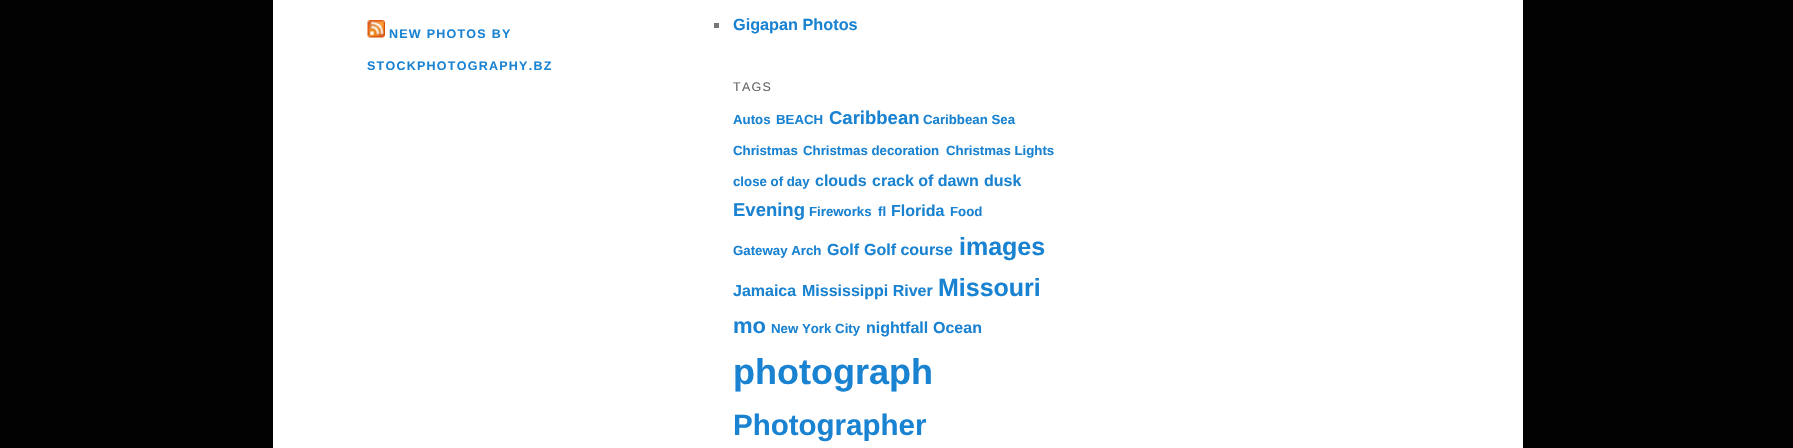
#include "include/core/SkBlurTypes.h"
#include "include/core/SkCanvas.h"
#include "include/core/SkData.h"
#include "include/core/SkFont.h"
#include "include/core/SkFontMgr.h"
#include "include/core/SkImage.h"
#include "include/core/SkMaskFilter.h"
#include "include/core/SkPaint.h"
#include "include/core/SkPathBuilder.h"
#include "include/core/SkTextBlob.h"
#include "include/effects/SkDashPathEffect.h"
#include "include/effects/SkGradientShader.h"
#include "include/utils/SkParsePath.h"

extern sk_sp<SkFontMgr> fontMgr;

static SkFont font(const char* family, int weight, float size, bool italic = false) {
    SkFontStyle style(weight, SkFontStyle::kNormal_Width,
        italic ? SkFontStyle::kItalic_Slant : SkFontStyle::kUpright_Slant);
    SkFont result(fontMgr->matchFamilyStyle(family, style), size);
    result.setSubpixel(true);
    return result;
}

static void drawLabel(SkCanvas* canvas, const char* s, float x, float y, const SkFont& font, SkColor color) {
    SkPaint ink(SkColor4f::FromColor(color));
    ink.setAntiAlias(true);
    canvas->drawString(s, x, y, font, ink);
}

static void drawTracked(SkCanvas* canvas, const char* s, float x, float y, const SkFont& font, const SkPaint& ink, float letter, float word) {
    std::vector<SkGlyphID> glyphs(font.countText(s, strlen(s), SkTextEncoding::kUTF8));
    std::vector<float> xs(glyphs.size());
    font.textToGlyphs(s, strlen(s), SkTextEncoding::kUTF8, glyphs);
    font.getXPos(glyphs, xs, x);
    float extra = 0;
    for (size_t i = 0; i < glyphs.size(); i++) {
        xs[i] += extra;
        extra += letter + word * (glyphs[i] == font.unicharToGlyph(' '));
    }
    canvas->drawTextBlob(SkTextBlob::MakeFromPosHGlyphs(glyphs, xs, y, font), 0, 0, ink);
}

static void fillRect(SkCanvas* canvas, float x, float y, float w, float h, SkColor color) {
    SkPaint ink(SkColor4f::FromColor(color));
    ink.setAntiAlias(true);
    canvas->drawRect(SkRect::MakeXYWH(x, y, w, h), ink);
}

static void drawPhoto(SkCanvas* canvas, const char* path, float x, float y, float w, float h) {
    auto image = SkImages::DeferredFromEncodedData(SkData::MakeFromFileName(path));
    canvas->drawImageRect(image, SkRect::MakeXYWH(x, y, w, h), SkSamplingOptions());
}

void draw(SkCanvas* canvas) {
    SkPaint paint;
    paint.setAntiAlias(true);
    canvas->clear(0xFF030202);
    fillRect(canvas, 273, 0, 1250, 448, 0xFFFFFFFF);
    drawPhoto(canvas, "assets/img1.png", 367, 20, 18, 18);
    SkFont font1 = font("Liberation Sans", 700, 12.5f);
    paint.setColor(0xFF1982D1);
    drawTracked(canvas, "NEW PHOTOS BY", 389, 38, font1, paint, 1.25f, 0);
    drawTracked(canvas, "STOCKPHOTOGRAPHY.BZ", 367, 70, font1, paint, 1.25f, 0);
    fillRect(canvas, 714, 23, 5, 5, 0xFF777777);
    SkFont font2 = font("Liberation Sans", 700, 16.25f);
    drawLabel(canvas, "Gigapan Photos", 733, 30, font2, 0xFF1982D1);
    SkFont font3 = font("Liberation Sans", 400, 12.5f);
    paint.setColor(0xFF666666);
    drawTracked(canvas, "TAGS", 733, 91, font3, paint, 1.25f, 0);
    SkFont font4 = font("Liberation Sans", 700, 13.25f);
    drawLabel(canvas, "Autos", 733, 124, font4, 0xFF1982D1);
    drawLabel(canvas, "BEACH", 776, 124, font4, 0xFF1982D1);
    SkFont font5 = font("Liberation Sans", 700, 18.5f);
    drawLabel(canvas, "Caribbean", 829, 124, font5, 0xFF1982D1);
    drawLabel(canvas, "Caribbean Sea", 923, 124, font4, 0xFF1982D1);
    drawLabel(canvas, "Christmas", 733, 155, font4, 0xFF1982D1);
    drawLabel(canvas, "Christmas decoration", 803, 155, font4, 0xFF1982D1);
    drawLabel(canvas, "Christmas Lights", 946, 155, font4, 0xFF1982D1);
    drawLabel(canvas, "close of day", 733, 186, font4, 0xFF1982D1);
    SkFont font6 = font("Liberation Sans", 700, 16);
    drawLabel(canvas, "clouds", 815, 186, font6, 0xFF1982D1);
    drawLabel(canvas, "crack of dawn", 872, 186, font6, 0xFF1982D1);
    drawLabel(canvas, "dusk", 984, 186, font6, 0xFF1982D1);
    drawLabel(canvas, "Evening", 733, 216, font5, 0xFF1982D1);
    drawLabel(canvas, "Fireworks", 809, 216, font4, 0xFF1982D1);
    drawLabel(canvas, "fl", 878, 216, font4, 0xFF1982D1);
    drawLabel(canvas, "Florida", 891, 216, font6, 0xFF1982D1);
    drawLabel(canvas, "Food", 950, 216, font4, 0xFF1982D1);
    drawLabel(canvas, "Gateway Arch", 733, 255, font4, 0xFF1982D1);
    drawLabel(canvas, "Golf", 827, 255, font6, 0xFF1982D1);
    drawLabel(canvas, "Golf course", 864, 255, font6, 0xFF1982D1);
    SkFont font7 = font("Liberation Sans", 700, 25);
    drawLabel(canvas, "images", 959, 255, font7, 0xFF1982D1);
    drawLabel(canvas, "Jamaica", 733, 296, font6, 0xFF1982D1);
    drawLabel(canvas, "Mississippi River", 802, 296, font6, 0xFF1982D1);
    drawLabel(canvas, "Missouri", 938, 296, font7, 0xFF1982D1);
    SkFont font8 = font("Liberation Sans", 700, 22);
    drawLabel(canvas, "mo", 733, 333, font8, 0xFF1982D1);
    drawLabel(canvas, "New York City", 771, 333, font4, 0xFF1982D1);
    drawLabel(canvas, "nightfall", 866, 333, font6, 0xFF1982D1);
    drawLabel(canvas, "Ocean", 933, 333, font6, 0xFF1982D1);
    SkFont font9 = font("Liberation Sans", 700, 36);
    drawLabel(canvas, "photograph", 733, 384, font9, 0xFF1982D1);
    SkFont font10 = font("Liberation Sans", 700, 29.5f);
    drawLabel(canvas, "Photographer", 733, 435, font10, 0xFF1982D1);
}
